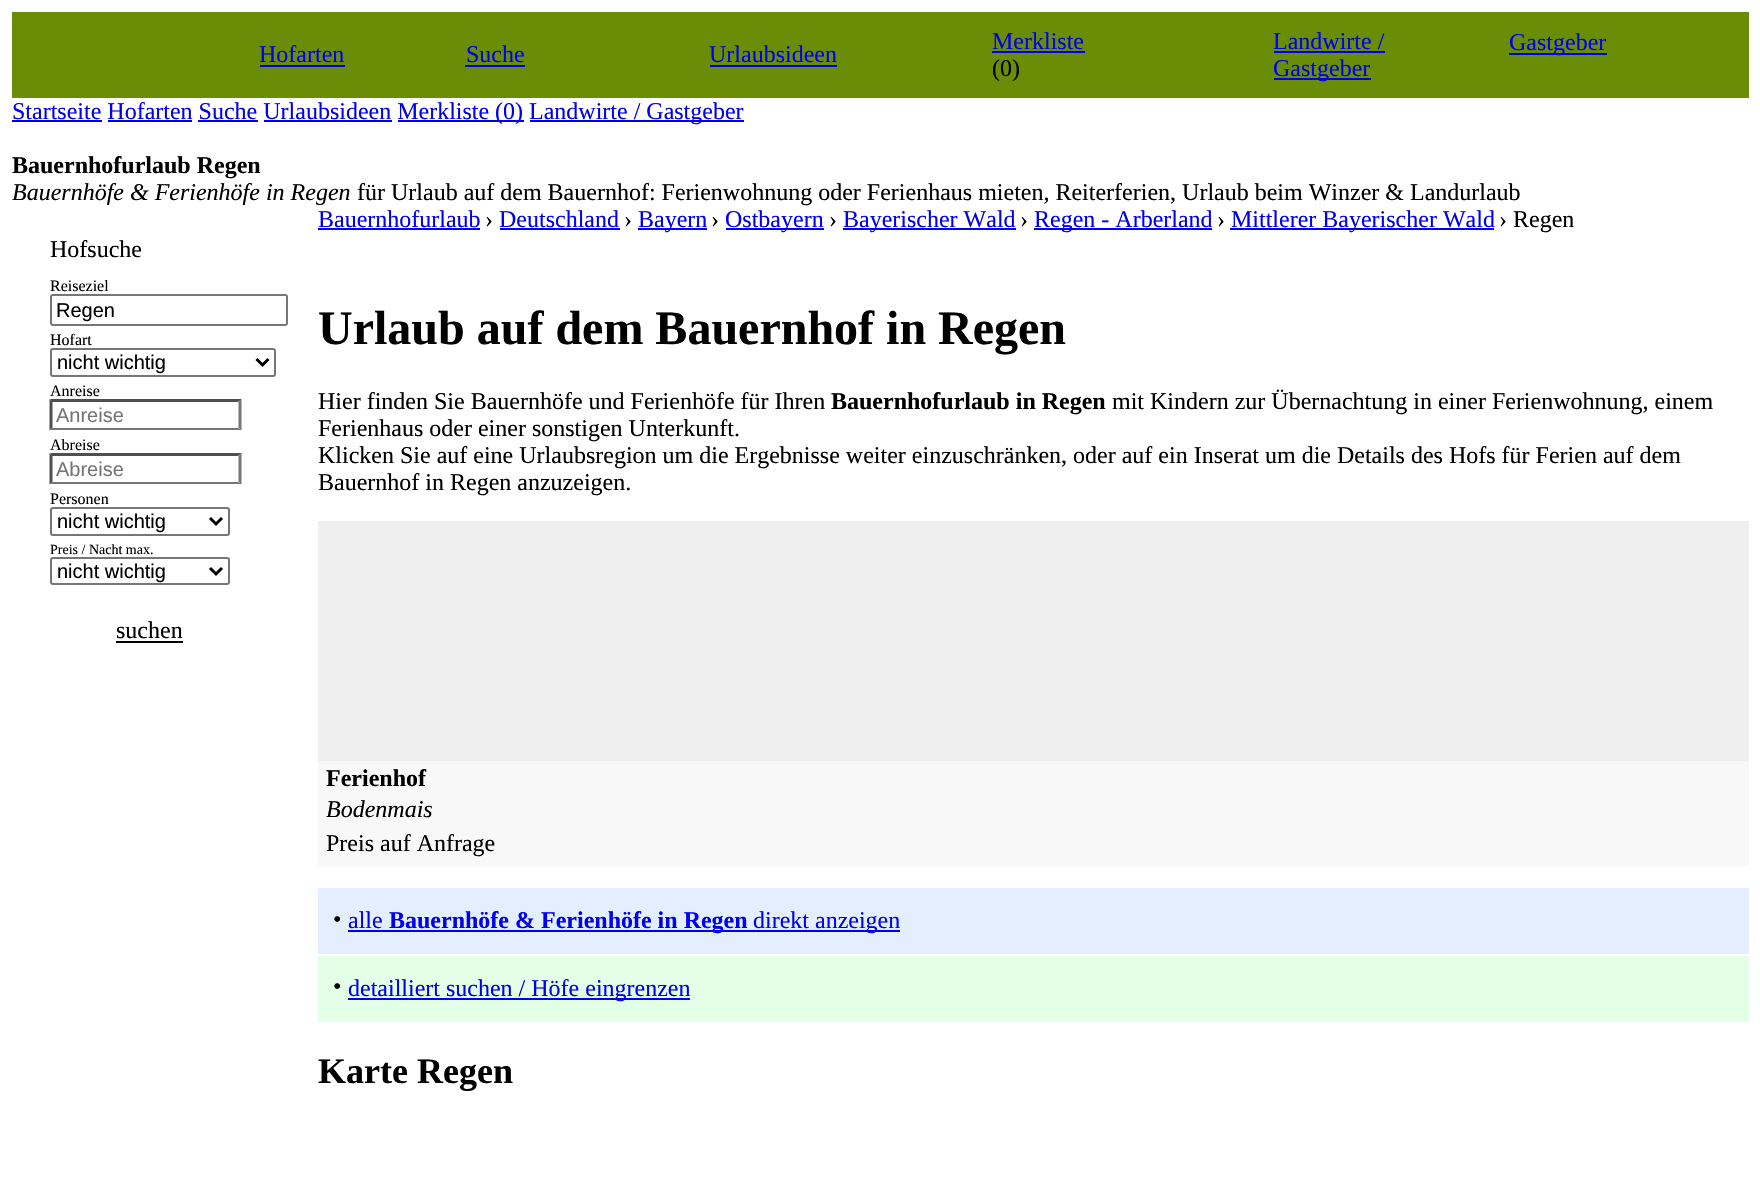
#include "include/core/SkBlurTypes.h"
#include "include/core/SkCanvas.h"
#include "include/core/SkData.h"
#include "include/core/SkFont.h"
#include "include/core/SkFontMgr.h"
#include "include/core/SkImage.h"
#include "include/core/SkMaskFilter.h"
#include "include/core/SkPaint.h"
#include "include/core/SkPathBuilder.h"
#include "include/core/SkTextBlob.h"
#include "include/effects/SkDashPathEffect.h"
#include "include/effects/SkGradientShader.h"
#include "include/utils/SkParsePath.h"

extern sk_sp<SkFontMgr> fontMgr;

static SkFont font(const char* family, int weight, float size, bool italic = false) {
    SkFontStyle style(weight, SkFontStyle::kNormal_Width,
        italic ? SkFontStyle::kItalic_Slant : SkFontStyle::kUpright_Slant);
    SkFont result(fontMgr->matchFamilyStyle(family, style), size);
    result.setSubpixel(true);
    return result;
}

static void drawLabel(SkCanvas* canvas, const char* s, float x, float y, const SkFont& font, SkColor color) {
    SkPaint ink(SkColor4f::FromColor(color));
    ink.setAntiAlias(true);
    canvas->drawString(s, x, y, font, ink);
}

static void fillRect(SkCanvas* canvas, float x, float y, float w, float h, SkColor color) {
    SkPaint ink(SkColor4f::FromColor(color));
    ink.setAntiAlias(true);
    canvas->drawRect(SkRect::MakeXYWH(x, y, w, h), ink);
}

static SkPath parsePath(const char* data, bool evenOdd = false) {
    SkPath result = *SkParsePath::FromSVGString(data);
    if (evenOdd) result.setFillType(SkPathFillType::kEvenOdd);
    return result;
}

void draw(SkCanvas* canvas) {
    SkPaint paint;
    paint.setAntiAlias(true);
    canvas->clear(0xFFFFFFFF);
    fillRect(canvas, 12, 12, 1737, 86, 0xFF6A8D08);
    SkFont font1 = font("Liberation Serif", 400, 24);
    drawLabel(canvas, "Hofarten", 259, 62, font1, 0xFF0000EE);
    fillRect(canvas, 260, 65, 85, 2, 0xFF0000EE);
    drawLabel(canvas, "Suche", 466, 62, font1, 0xFF0000EE);
    fillRect(canvas, 465, 65, 60, 2, 0xFF0000EE);
    drawLabel(canvas, "Urlaubsideen", 709, 62, font1, 0xFF0000EE);
    fillRect(canvas, 710, 65, 127, 2, 0xFF0000EE);
    drawLabel(canvas, "Merkliste", 992, 49, font1, 0xFF0000EE);
    fillRect(canvas, 992, 51, 93, 2, 0xFF0000EE);
    drawLabel(canvas, "(0)", 992, 76, font1, 0xFF000000);
    drawLabel(canvas, "Landwirte /", 1273, 49, font1, 0xFF0000EE);
    fillRect(canvas, 1274, 51, 111, 2, 0xFF0000EE);
    fillRect(canvas, 1274, 78, 97, 2, 0xFF0000EE);
    drawLabel(canvas, "Gastgeber", 1273, 76, font1, 0xFF0000EE);
    fillRect(canvas, 1509, 53, 98, 2, 0xFF0000EE);
    drawLabel(canvas, "Gastgeber", 1509, 50, font1, 0xFF0000EE);
    drawLabel(canvas, "Startseite Hofarten Suche Urlaubsideen Merkliste", 12, 119, font1, 0xFF0000EE);
    fillRect(canvas, 12, 120, 90, 2, 0xFF0000EE);
    fillRect(canvas, 398, 120, 126, 2, 0xFF0000EE);
    drawLabel(canvas, "(0)", 495, 119, font1, 0xFF0000EE);
    fillRect(canvas, 530, 120, 214, 2, 0xFF0000EE);
    drawLabel(canvas, "Landwirte / Gastgeber", 529, 119, font1, 0xFF0000EE);
    fillRect(canvas, 108, 120, 84, 2, 0xFF0000EE);
    fillRect(canvas, 198, 120, 60, 2, 0xFF0000EE);
    fillRect(canvas, 264, 120, 128, 2, 0xFF0000EE);
    SkFont font2 = font("Liberation Serif", 700, 24);
    drawLabel(canvas, "Bauernhofurlaub Regen", 12, 173, font2, 0xFF000000);
    SkFont font3 = font("Liberation Serif", 400, 24, true);
    drawLabel(canvas, "Bauernhöfe & Ferienhöfe in Regen", 12, 200, font3, 0xFF000000);
    drawLabel(canvas, "für Urlaub auf dem Bauernhof: Ferienwohnung oder Ferienhaus mieten, Reiterferien, Urlaub beim Winzer & Landurlaub", 357, 200, font1, 0xFF000000);
    drawLabel(canvas, "Hofsuche", 50, 257, font1, 0xFF000000);
    SkFont font4 = font("Liberation Serif", 400, 16);
    drawLabel(canvas, "Reiseziel", 50, 291, font4, 0xFF000000);
    paint.setStroke(true);
    paint.setStrokeWidth(2);
    paint.setColor(0xFF767676);
    canvas->drawRoundRect(SkRect::MakeXYWH(51, 295, 236, 30), 2, 2, paint);
    SkFont font5 = font("Liberation Sans", 400, 20);
    drawLabel(canvas, "Regen", 56, 317, font5, 0xFF000000);
    drawLabel(canvas, "Hofart", 50, 345, font4, 0xFF000000);
    canvas->drawRoundRect(SkRect::MakeXYWH(51, 349, 224, 27), 2, 2, paint);
    paint.setStrokeWidth(3);
    paint.setColor(0xFF000000);
    canvas->drawPath(parsePath("M256.5 359L262.5 365L268.5 359"), paint);
    drawLabel(canvas, "nicht wichtig", 57, 369, font5, 0xFF000000);
    drawLabel(canvas, "Anreise", 50, 396, font4, 0xFF000000);
    paint.setStroke(false);
    paint.setColor(0xFF4F4F4F);
    canvas->drawPath(parsePath("M50 399H242L238 402H52Z"), paint);
    paint.setColor(0xFF767676);
    canvas->drawPath(parsePath("M241.5 399V430.5L238.5 427.5V402Z"), paint);
    canvas->drawPath(parsePath("M242 430H50L52 428H238Z"), paint);
    paint.setColor(0xFF4F4F4F);
    canvas->drawPath(parsePath("M49.5 430.5V399L52.5 402V427.5Z"), paint);
    drawLabel(canvas, "Anreise", 56, 422, font5, 0xFF757575);
    drawLabel(canvas, "Abreise", 50, 450, font4, 0xFF000000);
    canvas->drawPath(parsePath("M50 453H242L238 456H52Z"), paint);
    paint.setColor(0xFF767676);
    canvas->drawPath(parsePath("M241.5 453V484.5L238.5 481.5V456Z"), paint);
    canvas->drawPath(parsePath("M242 484H50L52 482H238Z"), paint);
    paint.setColor(0xFF4F4F4F);
    canvas->drawPath(parsePath("M49.5 484.5V453L52.5 456V481.5Z"), paint);
    drawLabel(canvas, "Abreise", 56, 476, font5, 0xFF757575);
    drawLabel(canvas, "Personen", 50, 504, font4, 0xFF000000);
    paint.setStroke(true);
    paint.setStrokeWidth(2);
    paint.setColor(0xFF767676);
    canvas->drawRoundRect(SkRect::MakeXYWH(51, 508, 178, 27), 2, 2, paint);
    paint.setStrokeWidth(3);
    paint.setColor(0xFF000000);
    canvas->drawPath(parsePath("M210 518L216 524L222 518"), paint);
    drawLabel(canvas, "nicht wichtig", 57, 528, font5, 0xFF000000);
    SkFont font6 = font("Liberation Serif", 400, 14);
    drawLabel(canvas, "Preis / Nacht max.", 50, 554, font6, 0xFF000000);
    paint.setStrokeWidth(2);
    paint.setColor(0xFF767676);
    canvas->drawRoundRect(SkRect::MakeXYWH(51, 558, 178, 26), 2, 2, paint);
    paint.setStrokeWidth(3);
    paint.setColor(0xFF000000);
    canvas->drawPath(parsePath("M210 568L216 574L222 568"), paint);
    drawLabel(canvas, "nicht wichtig", 57, 578, font5, 0xFF000000);
    drawLabel(canvas, "suchen", 116, 638, font1, 0xFF000000);
    fillRect(canvas, 116, 641, 67, 2, 0xFF000000);
    drawLabel(canvas, "Bauernhofurlaub", 318, 227, font1, 0xFF0000EE);
    fillRect(canvas, 318, 228, 162, 2, 0xFF0000EE);
    drawLabel(canvas, "›", 485, 227, font1, 0xFF000000);
    drawLabel(canvas, "Deutschland", 499, 227, font1, 0xFF0000EE);
    fillRect(canvas, 500, 228, 120, 2, 0xFF0000EE);
    drawLabel(canvas, "›", 624, 227, font1, 0xFF000000);
    fillRect(canvas, 638, 228, 69, 2, 0xFF0000EE);
    drawLabel(canvas, "Bayern", 638, 227, font1, 0xFF0000EE);
    drawLabel(canvas, "›", 711, 227, font1, 0xFF000000);
    fillRect(canvas, 726, 228, 98, 2, 0xFF0000EE);
    drawLabel(canvas, "Ostbayern", 725, 227, font1, 0xFF0000EE);
    drawLabel(canvas, "›", 829, 227, font1, 0xFF000000);
    fillRect(canvas, 843, 228, 173, 2, 0xFF0000EE);
    drawLabel(canvas, "Bayerischer Wald", 843, 227, font1, 0xFF0000EE);
    drawLabel(canvas, "›", 1020, 227, font1, 0xFF000000);
    fillRect(canvas, 1034, 228, 178, 2, 0xFF0000EE);
    drawLabel(canvas, "Regen - Arberland", 1034, 227, font1, 0xFF0000EE);
    drawLabel(canvas, "›", 1217, 227, font1, 0xFF000000);
    fillRect(canvas, 1230, 228, 264, 2, 0xFF0000EE);
    drawLabel(canvas, "Mittlerer Bayerischer Wald", 1231, 227, font1, 0xFF0000EE);
    drawLabel(canvas, "› Regen", 1499, 227, font1, 0xFF000000);
    SkFont font7 = font("Liberation Serif", 700, 48);
    drawLabel(canvas, "Urlaub auf dem Bauernhof in Regen", 318, 344, font7, 0xFF000000);
    drawLabel(canvas, "Hier finden Sie Bauernhöfe und Ferienhöfe für Ihren", 318, 409, font1, 0xFF000000);
    drawLabel(canvas, "Bauernhofurlaub in Regen", 831, 409, font2, 0xFF000000);
    drawLabel(canvas, "mit Kindern zur Übernachtung in einer Ferienwohnung, einem", 1112, 409, font1, 0xFF000000);
    drawLabel(canvas, "Ferienhaus oder einer sonstigen Unterkunft.", 318, 436, font1, 0xFF000000);
    drawLabel(canvas, "Klicken Sie auf eine Urlaubsregion um die Ergebnisse weiter einzuschränken, oder auf ein Inserat um die Details des Hofs für Ferien auf dem", 318, 463, font1, 0xFF000000);
    drawLabel(canvas, "Bauernhof in Regen anzuzeigen.", 318, 490, font1, 0xFF000000);
    fillRect(canvas, 318, 521, 1431, 240, 0xFFEFEFEF);
    fillRect(canvas, 318, 761, 1431, 105, 0xFFF8F8F8);
    drawLabel(canvas, "Ferienhof", 326, 786, font2, 0xFF000000);
    drawLabel(canvas, "Bodenmais", 326, 817, font3, 0xFF000000);
    drawLabel(canvas, "Preis auf Anfrage", 326, 851, font1, 0xFF000000);
    fillRect(canvas, 318, 888, 1431, 66, 0xFFE3EFFF);
    drawLabel(canvas, "•", 333, 927, font1, 0xFF000000);
    drawLabel(canvas, "alle", 348, 928, font1, 0xFF0000EE);
    fillRect(canvas, 348, 930, 552, 2, 0xFF0000EE);
    drawLabel(canvas, "Bauernhöfe & Ferienhöfe in Regen", 389, 928, font2, 0xFF0000EE);
    drawLabel(canvas, "direkt anzeigen", 753, 928, font1, 0xFF0000EE);
    fillRect(canvas, 318, 956, 1431, 66, 0xFFE3FFE5);
    drawLabel(canvas, "•", 333, 994, font1, 0xFF000000);
    fillRect(canvas, 348, 998, 342, 2, 0xFF0000EE);
    drawLabel(canvas, "detailliert suchen / Höfe eingrenzen", 348, 996, font1, 0xFF0000EE);
    SkFont font8 = font("Liberation Serif", 700, 36);
    drawLabel(canvas, "Karte Regen", 318, 1083, font8, 0xFF000000);
}
